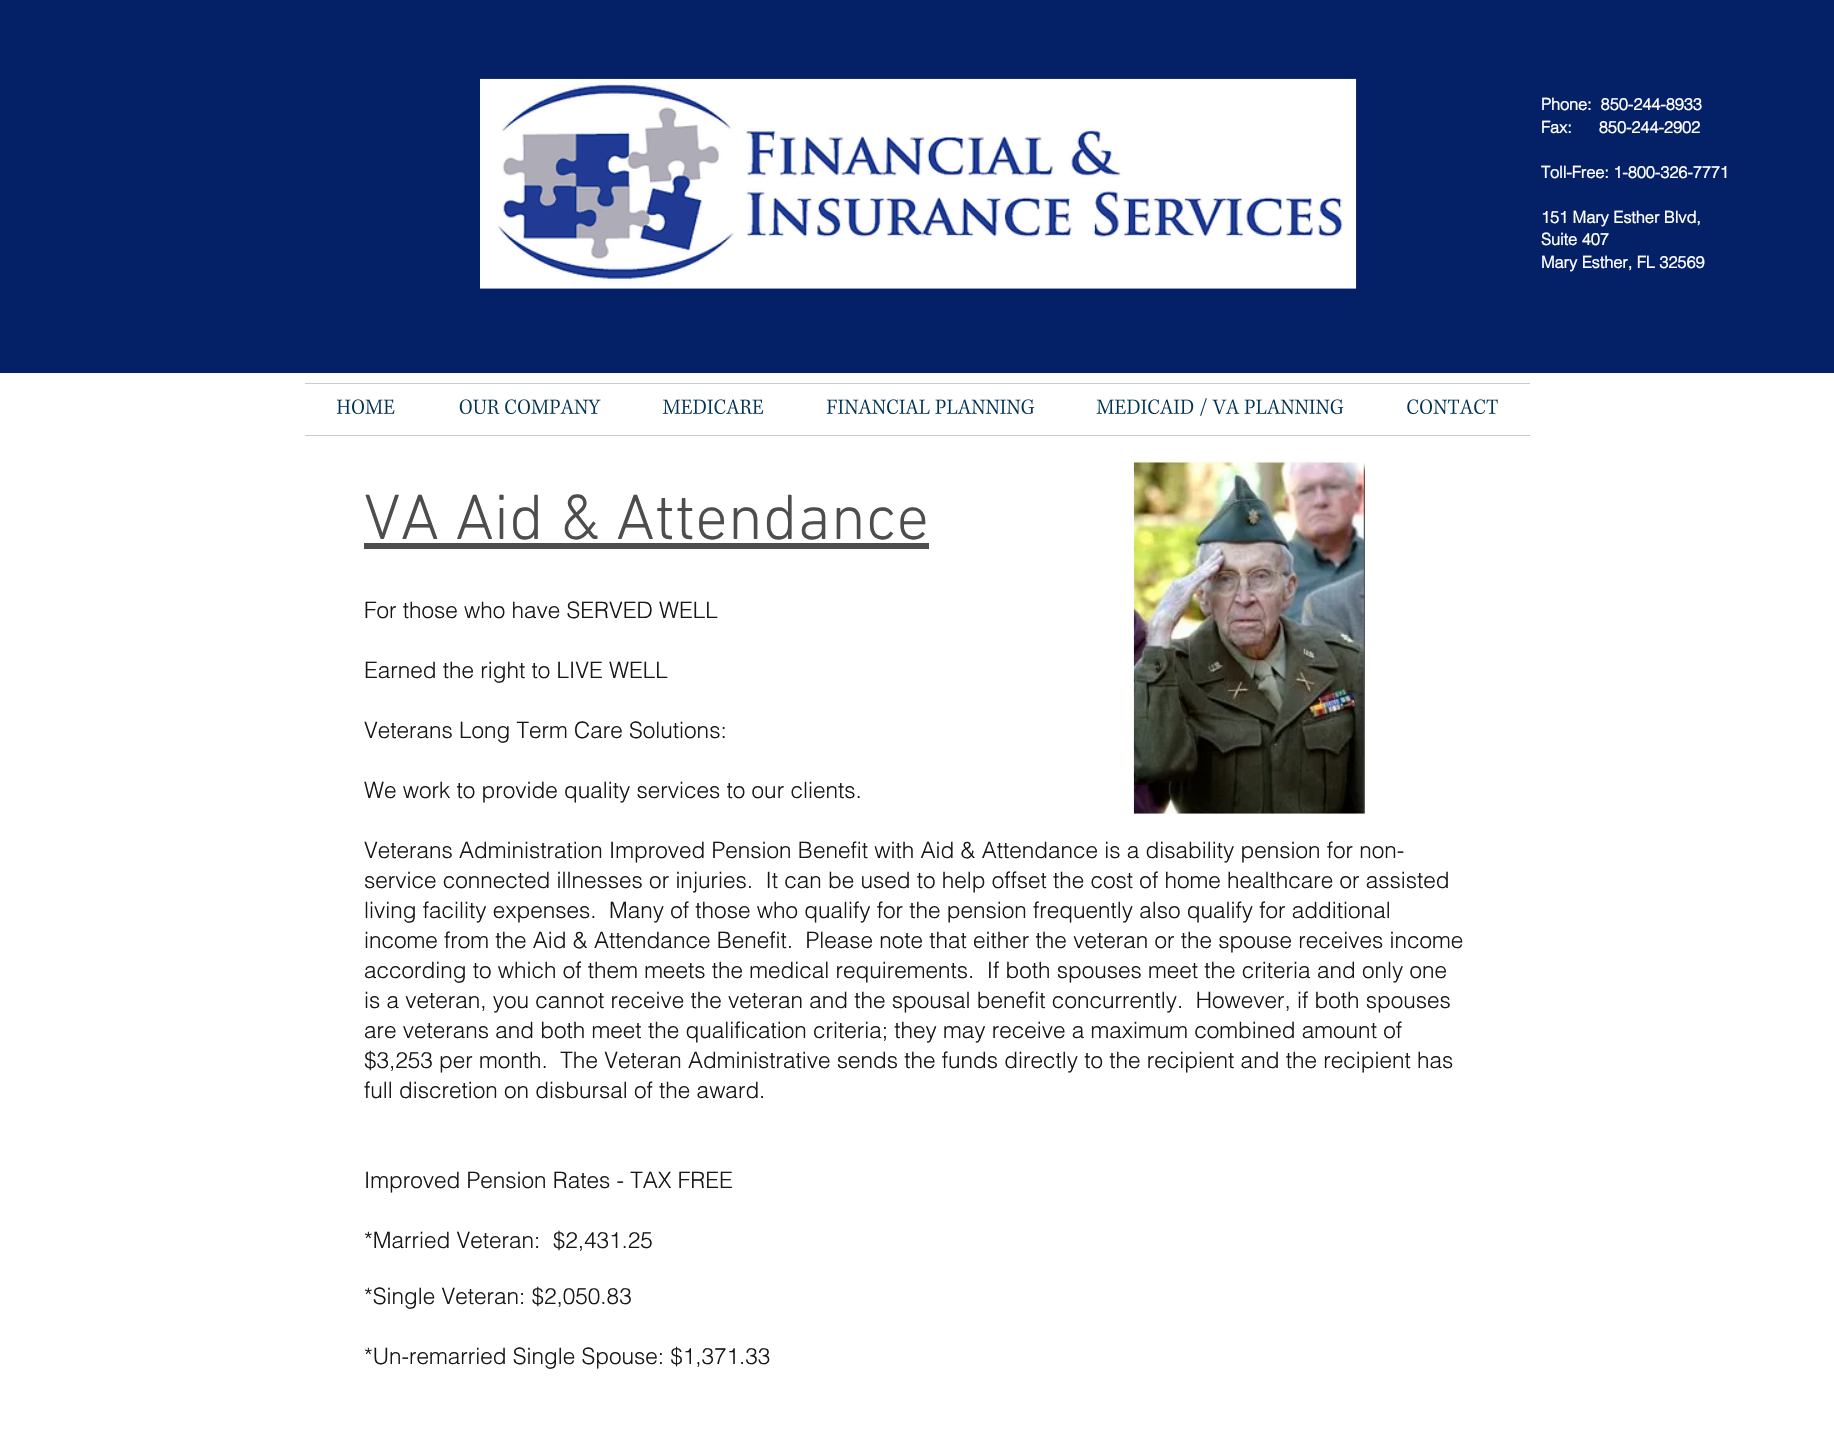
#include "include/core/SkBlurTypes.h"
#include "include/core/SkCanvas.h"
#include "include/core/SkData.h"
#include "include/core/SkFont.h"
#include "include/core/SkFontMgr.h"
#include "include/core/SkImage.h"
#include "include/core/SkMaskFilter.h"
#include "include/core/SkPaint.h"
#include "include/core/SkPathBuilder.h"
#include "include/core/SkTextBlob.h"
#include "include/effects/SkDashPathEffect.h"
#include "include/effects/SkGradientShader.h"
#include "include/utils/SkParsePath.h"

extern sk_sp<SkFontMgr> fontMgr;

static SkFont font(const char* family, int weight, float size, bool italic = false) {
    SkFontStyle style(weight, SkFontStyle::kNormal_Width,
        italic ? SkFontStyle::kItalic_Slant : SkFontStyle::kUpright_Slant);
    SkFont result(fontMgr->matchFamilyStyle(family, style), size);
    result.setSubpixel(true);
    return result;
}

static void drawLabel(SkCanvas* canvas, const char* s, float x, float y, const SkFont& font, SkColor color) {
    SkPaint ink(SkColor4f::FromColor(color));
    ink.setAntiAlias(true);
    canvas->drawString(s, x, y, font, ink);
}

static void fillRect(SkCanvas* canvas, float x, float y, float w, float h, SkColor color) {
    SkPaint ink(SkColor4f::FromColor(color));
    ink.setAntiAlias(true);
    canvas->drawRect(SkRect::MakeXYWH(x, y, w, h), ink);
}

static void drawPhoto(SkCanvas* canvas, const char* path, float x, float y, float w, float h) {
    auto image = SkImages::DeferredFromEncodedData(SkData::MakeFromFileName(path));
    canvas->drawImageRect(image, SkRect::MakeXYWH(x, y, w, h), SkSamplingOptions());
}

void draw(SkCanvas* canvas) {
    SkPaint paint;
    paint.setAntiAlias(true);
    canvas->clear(0xFFFFFFFF);
    fillRect(canvas, 0, 0, 1834, 373, 0xFF042066);
    drawPhoto(canvas, "assets/img1.png", 480, 78, 877, 211);
    SkFont font1 = font("helvetica", 700, 16.25f);
    drawLabel(canvas, "Phone:  850-244-8933", 1541, 110, font1, 0xFFFFFFFF);
    drawLabel(canvas, "Fax:      850-244-2902", 1541, 133, font1, 0xFFFFFFFF);
    drawLabel(canvas, "Toll-Free: 1-800-326-7771", 1541, 178, font1, 0xFFFFFFFF);
    drawLabel(canvas, "151 Mary Esther Blvd,", 1541, 223, font1, 0xFFFFFFFF);
    drawLabel(canvas, "Suite 407", 1541, 245, font1, 0xFFFFFFFF);
    drawLabel(canvas, "Mary Esther, FL 32569", 1541, 268, font1, 0xFFFFFFFF);
    fillRect(canvas, 305, 383, 1225, 1, 0xFFCACACA);
    fillRect(canvas, 305, 435, 1225, 1, 0xFFCACACA);
    drawPhoto(canvas, "assets/img2.png", 336, 399, 59, 16);
    drawPhoto(canvas, "assets/img3.png", 459, 399, 142, 16);
    drawPhoto(canvas, "assets/img4.png", 662, 399, 102, 16);
    drawPhoto(canvas, "assets/img5.png", 826, 399, 209, 16);
    drawPhoto(canvas, "assets/img6.png", 1096, 398, 248, 18);
    drawPhoto(canvas, "assets/img7.png", 1407, 399, 91, 16);
    SkFont font2 = font("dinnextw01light", 300, 65);
    drawLabel(canvas, "VA Aid & Attendance", 364, 539, font2, 0xFF4D4D4D);
    fillRect(canvas, 364, 543, 565, 6, 0xFF4D4D4D);
    drawPhoto(canvas, "assets/img8.png", 1133, 461, 232, 353);
    SkFont font3 = font("helvetica", 300, 22.5f);
    drawLabel(canvas, "For those who have SERVED WELL", 364, 618, font3, 0xFF171717);
    drawLabel(canvas, "Earned the right to LIVE WELL", 364, 678, font3, 0xFF171717);
    drawLabel(canvas, "Veterans Long Term Care Solutions:", 364, 738, font3, 0xFF171717);
    drawLabel(canvas, "We work to provide quality services to our clients.", 364, 798, font3, 0xFF171717);
    drawLabel(canvas, "Veterans Administration Improved Pension Benefit with Aid & Attendance is a disability pension for non-", 364, 858, font3, 0xFF171717);
    drawLabel(canvas, "service connected illnesses or injuries.  It can be used to help offset the cost of home healthcare or assisted", 364, 888, font3, 0xFF171717);
    drawLabel(canvas, "living facility expenses.  Many of those who qualify for the pension frequently also qualify for additional", 364, 918, font3, 0xFF171717);
    drawLabel(canvas, "income from the Aid & Attendance Benefit.  Please note that either the veteran or the spouse receives income", 364, 948, font3, 0xFF171717);
    drawLabel(canvas, "according to which of them meets the medical requirements.  If both spouses meet the criteria and only one", 364, 978, font3, 0xFF171717);
    drawLabel(canvas, "is a veteran, you cannot receive the veteran and the spousal benefit concurrently.  However, if both spouses", 364, 1008, font3, 0xFF171717);
    drawLabel(canvas, "are veterans and both meet the qualification criteria; they may receive a maximum combined amount of", 364, 1038, font3, 0xFF171717);
    drawLabel(canvas, "$3,253 per month.  The Veteran Administrative sends the funds directly to the recipient and the recipient has", 364, 1068, font3, 0xFF171717);
    drawLabel(canvas, "full discretion on disbursal of the award.", 364, 1098, font3, 0xFF171717);
    drawLabel(canvas, "Improved Pension Rates - TAX FREE", 364, 1188, font3, 0xFF171717);
    drawLabel(canvas, "*Married Veteran:  $2,431.25", 364, 1248, font3, 0xFF171717);
    drawLabel(canvas, "*Single Veteran: $2,050.83", 364, 1304, font3, 0xFF171717);
    drawLabel(canvas, "*Un-remarried Single Spouse: $1,371.33", 364, 1364, font3, 0xFF171717);
}
